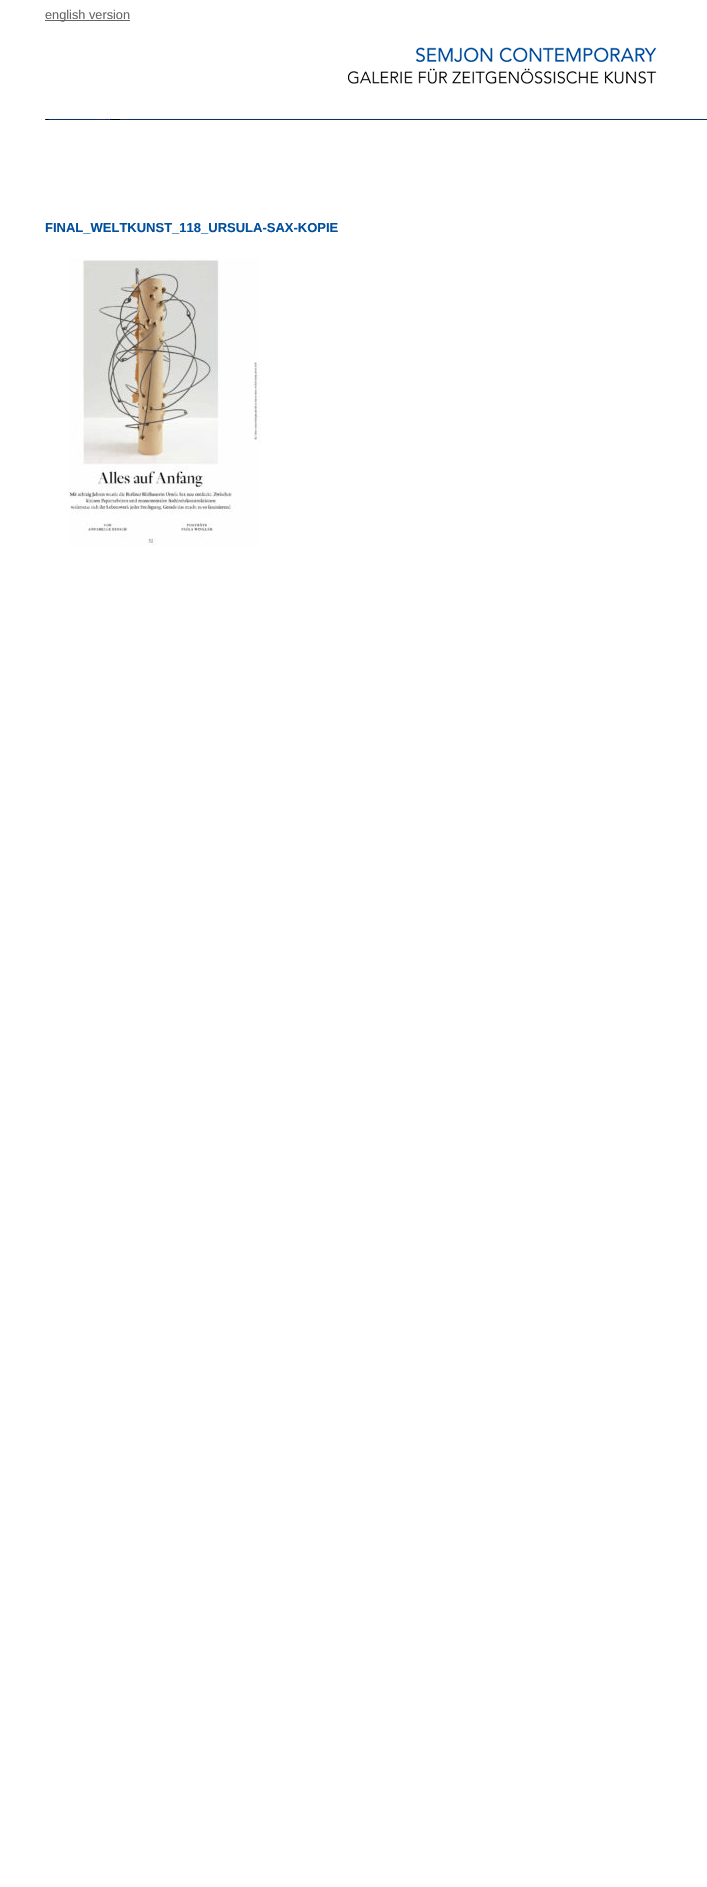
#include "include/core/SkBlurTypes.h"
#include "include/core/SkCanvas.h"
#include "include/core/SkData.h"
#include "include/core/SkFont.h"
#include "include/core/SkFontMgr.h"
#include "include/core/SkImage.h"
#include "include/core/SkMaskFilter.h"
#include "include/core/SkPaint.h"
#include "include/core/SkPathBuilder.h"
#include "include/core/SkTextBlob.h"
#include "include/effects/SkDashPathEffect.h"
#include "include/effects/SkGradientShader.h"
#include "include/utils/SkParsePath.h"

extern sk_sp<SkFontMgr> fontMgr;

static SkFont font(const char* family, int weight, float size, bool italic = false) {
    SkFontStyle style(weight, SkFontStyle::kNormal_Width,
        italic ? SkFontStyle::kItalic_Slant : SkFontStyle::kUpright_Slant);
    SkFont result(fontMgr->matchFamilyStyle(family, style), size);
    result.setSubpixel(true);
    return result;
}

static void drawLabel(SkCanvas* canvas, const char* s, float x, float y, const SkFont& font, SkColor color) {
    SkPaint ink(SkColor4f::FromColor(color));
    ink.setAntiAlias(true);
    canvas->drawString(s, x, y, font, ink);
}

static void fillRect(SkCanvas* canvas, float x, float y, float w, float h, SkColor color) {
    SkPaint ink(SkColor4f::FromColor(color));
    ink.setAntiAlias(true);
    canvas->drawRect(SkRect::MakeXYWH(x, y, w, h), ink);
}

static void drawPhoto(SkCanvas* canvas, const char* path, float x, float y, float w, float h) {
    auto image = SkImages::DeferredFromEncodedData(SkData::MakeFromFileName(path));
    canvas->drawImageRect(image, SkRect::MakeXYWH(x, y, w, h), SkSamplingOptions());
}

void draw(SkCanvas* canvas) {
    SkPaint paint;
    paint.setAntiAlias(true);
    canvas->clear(0xFFFFFFFF);
    drawPhoto(canvas, "assets/img1.png", 41, 47, 666, 73);
    fillRect(canvas, 45, 20, 85, 1, 0xFF666666);
    SkFont font1 = font("Liberation Sans", 400, 12.75f);
    drawLabel(canvas, "english version", 45, 19, font1, 0xFF666666);
    SkFont font2 = font("Liberation Sans", 700, 13);
    drawLabel(canvas, "FINAL_WELTKUNST_118_URSULA-SAX-KOPIE", 45, 232, font2, 0xFF00509E);
    drawPhoto(canvas, "assets/img2.png", 69, 258, 192, 288);
}
